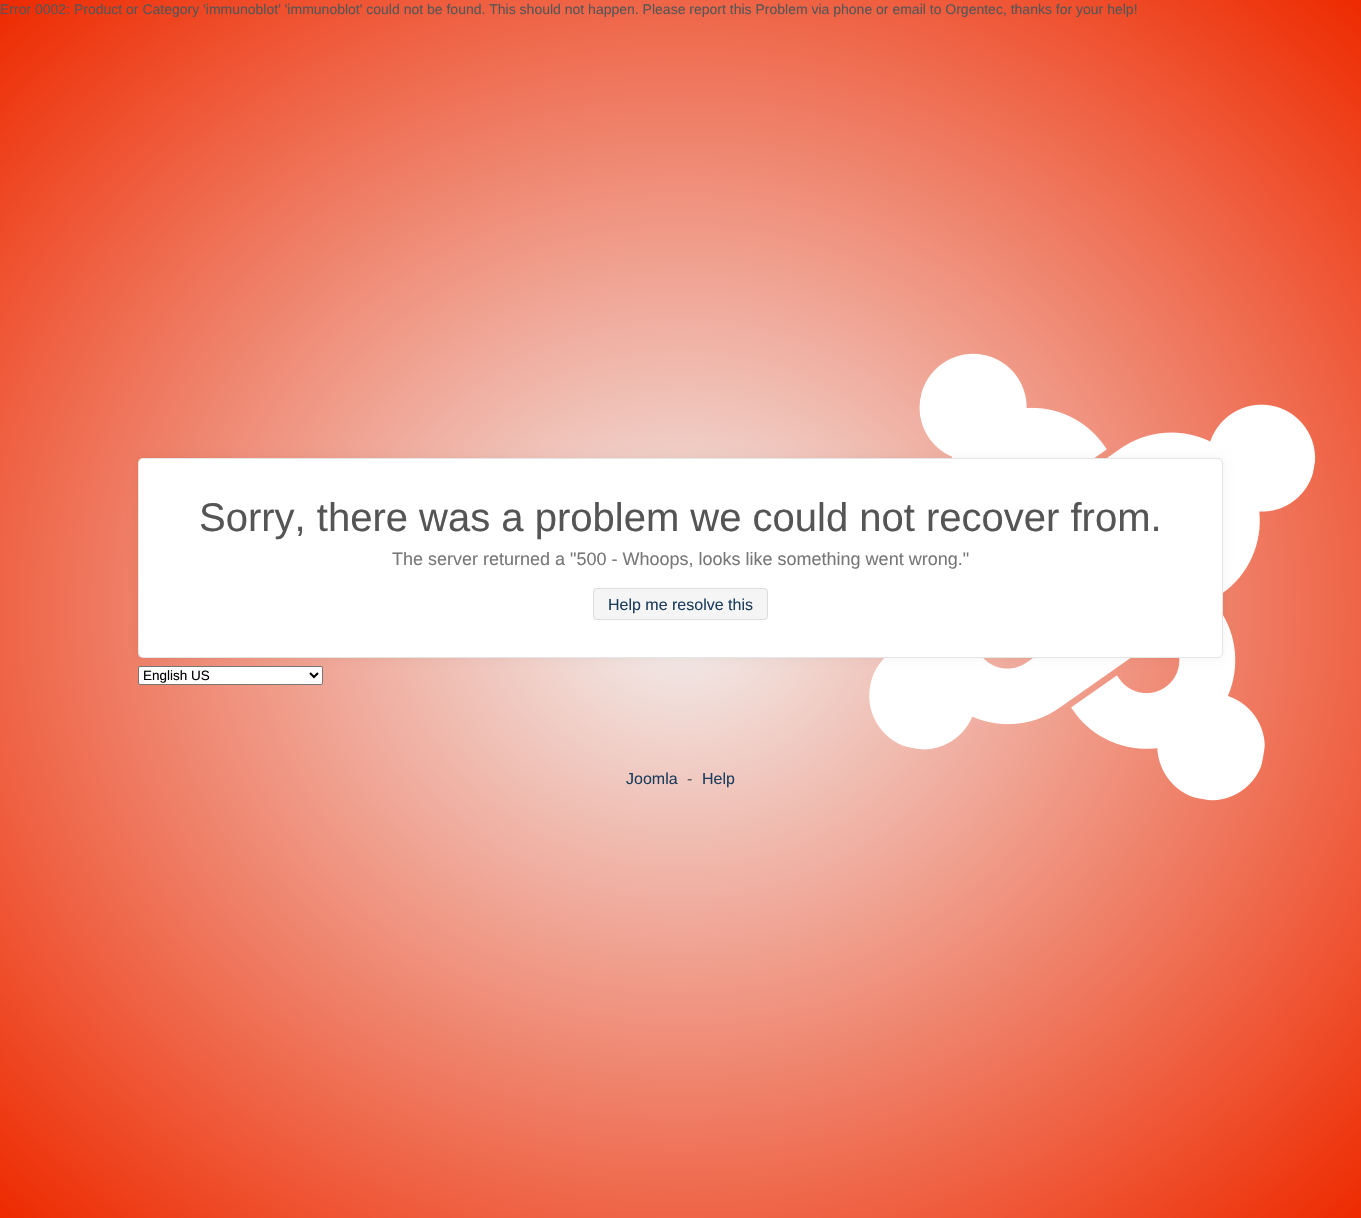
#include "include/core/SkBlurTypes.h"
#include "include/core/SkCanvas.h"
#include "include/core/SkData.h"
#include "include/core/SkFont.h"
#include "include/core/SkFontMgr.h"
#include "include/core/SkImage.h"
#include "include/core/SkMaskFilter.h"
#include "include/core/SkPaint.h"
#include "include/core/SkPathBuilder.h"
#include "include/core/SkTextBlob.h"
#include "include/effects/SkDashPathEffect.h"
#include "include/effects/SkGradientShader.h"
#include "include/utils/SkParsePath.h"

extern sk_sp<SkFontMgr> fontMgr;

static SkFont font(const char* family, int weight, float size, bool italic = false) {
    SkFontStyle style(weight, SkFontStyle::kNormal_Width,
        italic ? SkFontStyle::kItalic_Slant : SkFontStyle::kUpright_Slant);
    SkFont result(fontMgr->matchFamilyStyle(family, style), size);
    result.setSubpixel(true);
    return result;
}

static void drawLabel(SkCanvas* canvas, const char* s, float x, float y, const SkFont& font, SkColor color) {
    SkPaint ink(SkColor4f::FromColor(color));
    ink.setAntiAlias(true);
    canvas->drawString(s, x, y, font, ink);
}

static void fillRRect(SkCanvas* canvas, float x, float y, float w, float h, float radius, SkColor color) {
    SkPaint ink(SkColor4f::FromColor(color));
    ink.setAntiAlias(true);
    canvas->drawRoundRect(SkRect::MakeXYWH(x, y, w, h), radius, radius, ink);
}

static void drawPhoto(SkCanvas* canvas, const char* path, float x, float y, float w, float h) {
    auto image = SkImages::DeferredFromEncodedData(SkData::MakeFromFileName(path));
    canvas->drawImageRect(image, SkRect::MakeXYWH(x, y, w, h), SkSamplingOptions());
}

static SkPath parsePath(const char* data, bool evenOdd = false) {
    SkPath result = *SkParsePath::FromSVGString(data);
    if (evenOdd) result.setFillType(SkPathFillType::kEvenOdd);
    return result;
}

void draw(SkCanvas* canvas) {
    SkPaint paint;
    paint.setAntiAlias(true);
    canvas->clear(0xFFFFFFFF);
    {
        const SkColor colors[] = {0xFFF1F1F1, 0xFFEE2A00};
        const float stops[] = {0, 1};
        SkMatrix m = SkMatrix::Translate(681, 609).preScale(962, 861);
        paint.setShader(SkGradientShader::MakeRadial({0, 0}, 1, colors, stops, 2, SkTileMode::kClamp, 0, &m));
        paint.setAlpha(255);
    }
    canvas->drawRect(SkRect::MakeXYWH(0, 0, 1361, 1218), paint);
    SkFont font1 = font("Liberation Sans", 400, 14);
    drawLabel(canvas, "Error 0002: Product or Category 'immunoblot' 'immunoblot' could not be found. This should not happen. Please report this Problem via phone or email to Orgentec, thanks for your help!", 0, 14, font1, 0xFF555555);
    drawPhoto(canvas, "assets/img1.png", 869, 353, 447, 448);
    paint.setShader(nullptr);
    paint.setColor(0xFFFFFFFF);
    canvas->drawRoundRect(SkRect::MakeXYWH(138.5f, 666.5f, 184, 18), 1.5f, 1.5f, paint);
    paint.setStroke(true);
    paint.setStrokeWidth(1);
    paint.setColor(0xFF767676);
    canvas->drawRoundRect(SkRect::MakeXYWH(138.5f, 666.5f, 184, 18), 1.5f, 1.5f, paint);
    paint.setStrokeWidth(2);
    paint.setColor(0xFF000000);
    canvas->drawPath(parsePath("M310 673L314 677L318 673"), paint);
    paint.setStroke(false);
    paint.setColor(0x0D000000);
    paint.setMaskFilter(SkMaskFilter::MakeBlur(kNormal_SkBlurStyle, 5));
    canvas->drawRoundRect(SkRect::MakeXYWH(138, 458, 1085, 200), 5, 5, paint);
    paint.setMaskFilter(nullptr);
    fillRRect(canvas, 138, 458, 1085, 200, 5, 0xFFFFFFFF);
    paint.setStroke(true);
    paint.setStrokeWidth(1);
    paint.setColor(0x1A000000);
    canvas->drawRoundRect(SkRect::MakeXYWH(138.5f, 458.5f, 1084, 199), 4.5f, 4.5f, paint);
    SkFont font2 = font("Liberation Sans", 400, 40);
    drawLabel(canvas, "Sorry, there was a problem we could not recover from.", 199, 531, font2, 0xFF555555);
    SkFont font3 = font("Liberation Sans", 400, 18);
    drawLabel(canvas, "The server returned a \"500 - Whoops, looks like something went wrong.\"", 392, 565, font3, 0xFF777777);
    fillRRect(canvas, 593, 588, 175, 32, 4, 0xFFF5F5F5);
    canvas->drawRoundRect(SkRect::MakeXYWH(593.5f, 588.5f, 174, 31), 3.5f, 3.5f, paint);
    SkFont font4 = font("Liberation Sans", 400, 16);
    drawLabel(canvas, "Help me resolve this", 608, 610, font4, 0xFF1C3D5C);
    SkFont font5 = font("Liberation Sans", 400, 13.5f);
    drawLabel(canvas, "English US", 143, 680, font5, 0xFF000000);
    drawLabel(canvas, "Joomla", 626, 784, font4, 0xFF1C3D5C);
    drawLabel(canvas, "-", 687, 784, font4, 0xFF555555);
    drawLabel(canvas, "Help", 702, 784, font4, 0xFF1C3D5C);
}
